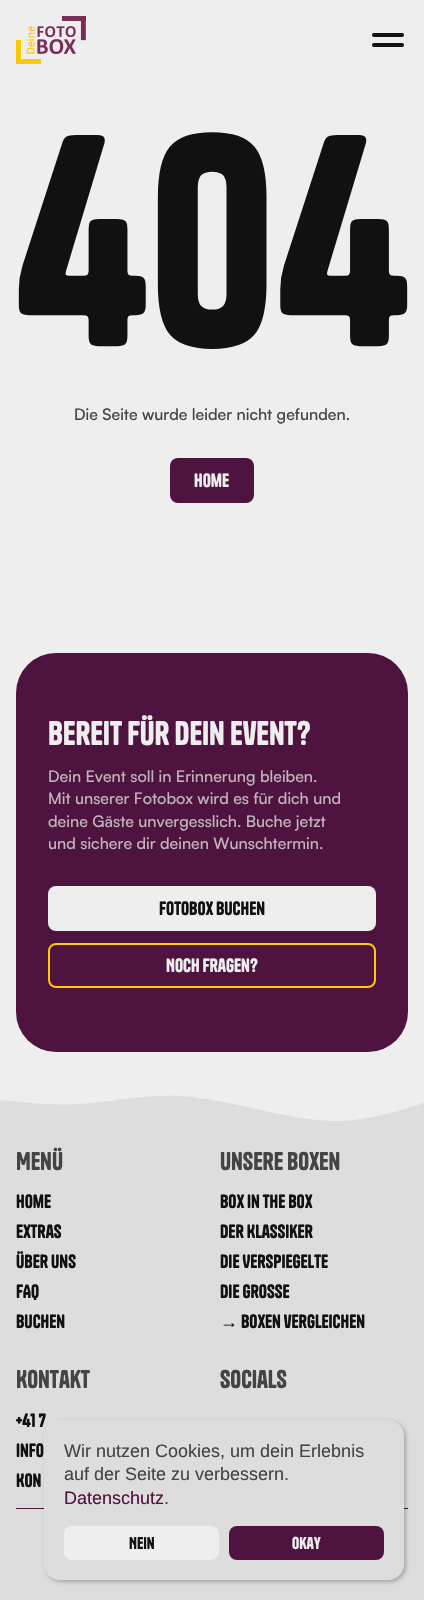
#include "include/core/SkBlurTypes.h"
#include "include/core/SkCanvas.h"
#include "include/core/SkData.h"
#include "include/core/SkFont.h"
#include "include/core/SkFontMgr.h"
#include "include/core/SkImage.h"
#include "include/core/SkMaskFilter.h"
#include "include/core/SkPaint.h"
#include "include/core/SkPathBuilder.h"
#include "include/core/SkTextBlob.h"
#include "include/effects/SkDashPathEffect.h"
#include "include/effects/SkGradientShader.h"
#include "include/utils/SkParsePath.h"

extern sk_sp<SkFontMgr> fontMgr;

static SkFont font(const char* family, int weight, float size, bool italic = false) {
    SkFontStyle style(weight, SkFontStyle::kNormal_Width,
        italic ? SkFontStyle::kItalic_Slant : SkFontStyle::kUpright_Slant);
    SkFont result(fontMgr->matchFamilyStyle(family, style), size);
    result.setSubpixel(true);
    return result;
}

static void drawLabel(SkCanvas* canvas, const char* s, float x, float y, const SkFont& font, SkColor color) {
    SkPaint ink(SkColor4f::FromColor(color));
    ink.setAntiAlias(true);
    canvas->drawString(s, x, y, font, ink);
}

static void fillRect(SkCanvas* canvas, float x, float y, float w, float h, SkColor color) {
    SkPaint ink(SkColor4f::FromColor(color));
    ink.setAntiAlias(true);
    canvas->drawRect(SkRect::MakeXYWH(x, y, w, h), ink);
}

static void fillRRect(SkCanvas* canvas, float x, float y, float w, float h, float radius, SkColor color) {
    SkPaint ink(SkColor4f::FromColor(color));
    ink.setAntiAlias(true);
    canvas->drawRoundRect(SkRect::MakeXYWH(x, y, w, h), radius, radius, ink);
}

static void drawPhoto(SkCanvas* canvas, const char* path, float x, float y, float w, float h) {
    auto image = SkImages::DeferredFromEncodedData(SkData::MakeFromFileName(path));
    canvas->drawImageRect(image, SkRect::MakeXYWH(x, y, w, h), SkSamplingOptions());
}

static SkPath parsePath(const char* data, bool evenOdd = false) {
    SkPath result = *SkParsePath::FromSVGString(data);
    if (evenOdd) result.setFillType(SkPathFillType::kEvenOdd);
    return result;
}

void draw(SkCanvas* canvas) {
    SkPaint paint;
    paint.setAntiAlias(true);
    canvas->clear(0xFFEEEEEE);
    drawPhoto(canvas, "assets/img1.png", 16, 16, 70, 48);
    fillRRect(canvas, 372, 33, 32, 4, 2, 0xFF111111);
    fillRRect(canvas, 372, 43, 32, 4, 2, 0xFF111111);
    drawPhoto(canvas, "assets/img2.png", 18, 132, 390, 217);
    SkFont font1 = font("Satoshi", 500, 16);
    drawLabel(canvas, "Die Seite wurde leider nicht gefunden.", 74, 420, font1, 0xFF444444);
    fillRRect(canvas, 170, 458, 84, 45, 8, 0xFF4F133F);
    SkFont font2 = font("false", 400, 18);
    drawLabel(canvas, "Home", 194, 487, font2, 0xFFEEEEEE);
    fillRRect(canvas, 16, 653, 392, 399, 40, 0xFF4F133F);
    SkFont font3 = font("false", 400, 32);
    drawLabel(canvas, "Bereit für dein Event?", 48, 745, font3, 0xFFEEEEEE);
    drawLabel(canvas, "Dein Event soll in Erinnerung bleiben.", 48, 782, font1, 0xFFC1B5BD);
    drawLabel(canvas, "Mit unserer Fotobox wird es für dich und", 48, 804, font1, 0xFFC1B5BD);
    drawLabel(canvas, "deine Gäste unvergesslich. Buche jetzt", 48, 827, font1, 0xFFC1B5BD);
    drawLabel(canvas, "und sichere dir deinen Wunschtermin.", 48, 849, font1, 0xFFC1B5BD);
    fillRRect(canvas, 48, 886, 328, 45, 8, 0xFFEEEEEE);
    drawLabel(canvas, "Fotobox buchen", 159, 915, font2, 0xFF111111);
    paint.setStroke(true);
    paint.setStrokeWidth(2);
    paint.setColor(0xFFFEC804);
    canvas->drawRoundRect(SkRect::MakeXYWH(49, 944, 326, 43), 7, 7, paint);
    drawLabel(canvas, "Noch Fragen?", 166, 972, font2, 0xFFEEEEEE);
    paint.setStroke(false);
    paint.setColor(0xFFDDDDDD);
    canvas->drawPath(parsePath("M-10 1099C19 1102 49 1106 79 1104C112 1102 145 1094 179 1096C232 1099 282 1120 335 1121C369 1121 402 1110 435 1099V1149H-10Z"), paint);
    fillRect(canvas, 0, 1149, 424, 451, 0xFFDDDDDD);
    SkFont font4 = font("false", 400, 24);
    drawLabel(canvas, "Menü", 16, 1170, font4, 0xFF444444);
    drawLabel(canvas, "Home", 16, 1208, font2, 0xFF111111);
    drawLabel(canvas, "Extras", 16, 1238, font2, 0xFF111111);
    drawLabel(canvas, "Über uns", 16, 1268, font2, 0xFF111111);
    drawLabel(canvas, "FAQ", 16, 1298, font2, 0xFF111111);
    drawLabel(canvas, "Buchen", 16, 1328, font2, 0xFF111111);
    drawLabel(canvas, "Unsere Boxen", 220, 1170, font4, 0xFF444444);
    drawLabel(canvas, "Box in the Box", 220, 1208, font2, 0xFF111111);
    drawLabel(canvas, "Der Klassiker", 220, 1238, font2, 0xFF111111);
    drawLabel(canvas, "Die Verspiegelte", 220, 1268, font2, 0xFF111111);
    drawLabel(canvas, "Die Grosse", 220, 1298, font2, 0xFF111111);
    SkFont font5 = font("Liberation Sans", 400, 18);
    drawLabel(canvas, "→", 220, 1328, font5, 0xFF111111);
    drawLabel(canvas, "Boxen vergleichen", 241, 1328, font2, 0xFF111111);
    drawLabel(canvas, "Kontakt", 16, 1388, font4, 0xFF444444);
    drawLabel(canvas, "+41 7", 16, 1427, font2, 0xFF111111);
    drawLabel(canvas, "info", 16, 1457, font2, 0xFF111111);
    drawLabel(canvas, "Kon", 16, 1487, font2, 0xFF111111);
    drawLabel(canvas, "Socials", 220, 1388, font4, 0xFF444444);
    fillRect(canvas, 16, 1508, 392, 1, 0xFF4F133F);
    paint.setColor(0x40000000);
    paint.setMaskFilter(SkMaskFilter::MakeBlur(kNormal_SkBlurStyle, 2));
    canvas->drawRoundRect(SkRect::MakeXYWH(46, 1422, 360, 160), 16, 16, paint);
    paint.setMaskFilter(nullptr);
    fillRRect(canvas, 44, 1420, 360, 160, 16, 0xFFDDDDDD);
    drawLabel(canvas, "Wir nutzen Cookies, um dein Erlebnis", 64, 1457, font5, 0xFF444444);
    drawLabel(canvas, "auf der Seite zu verbessern.", 64, 1480, font5, 0xFF444444);
    drawLabel(canvas, "Datenschutz", 64, 1504, font5, 0xFF4F133F);
    drawLabel(canvas, ".", 164, 1504, font5, 0xFF444444);
    fillRRect(canvas, 64, 1526, 155, 34, 8, 0xFFEEEEEE);
    SkFont font6 = font("false", 400, 16);
    drawLabel(canvas, "Nein", 129, 1549, font6, 0xFF111111);
    fillRRect(canvas, 229, 1526, 155, 34, 8, 0xFF4F133F);
    drawLabel(canvas, "Okay", 292, 1549, font6, 0xFFEEEEEE);
}
